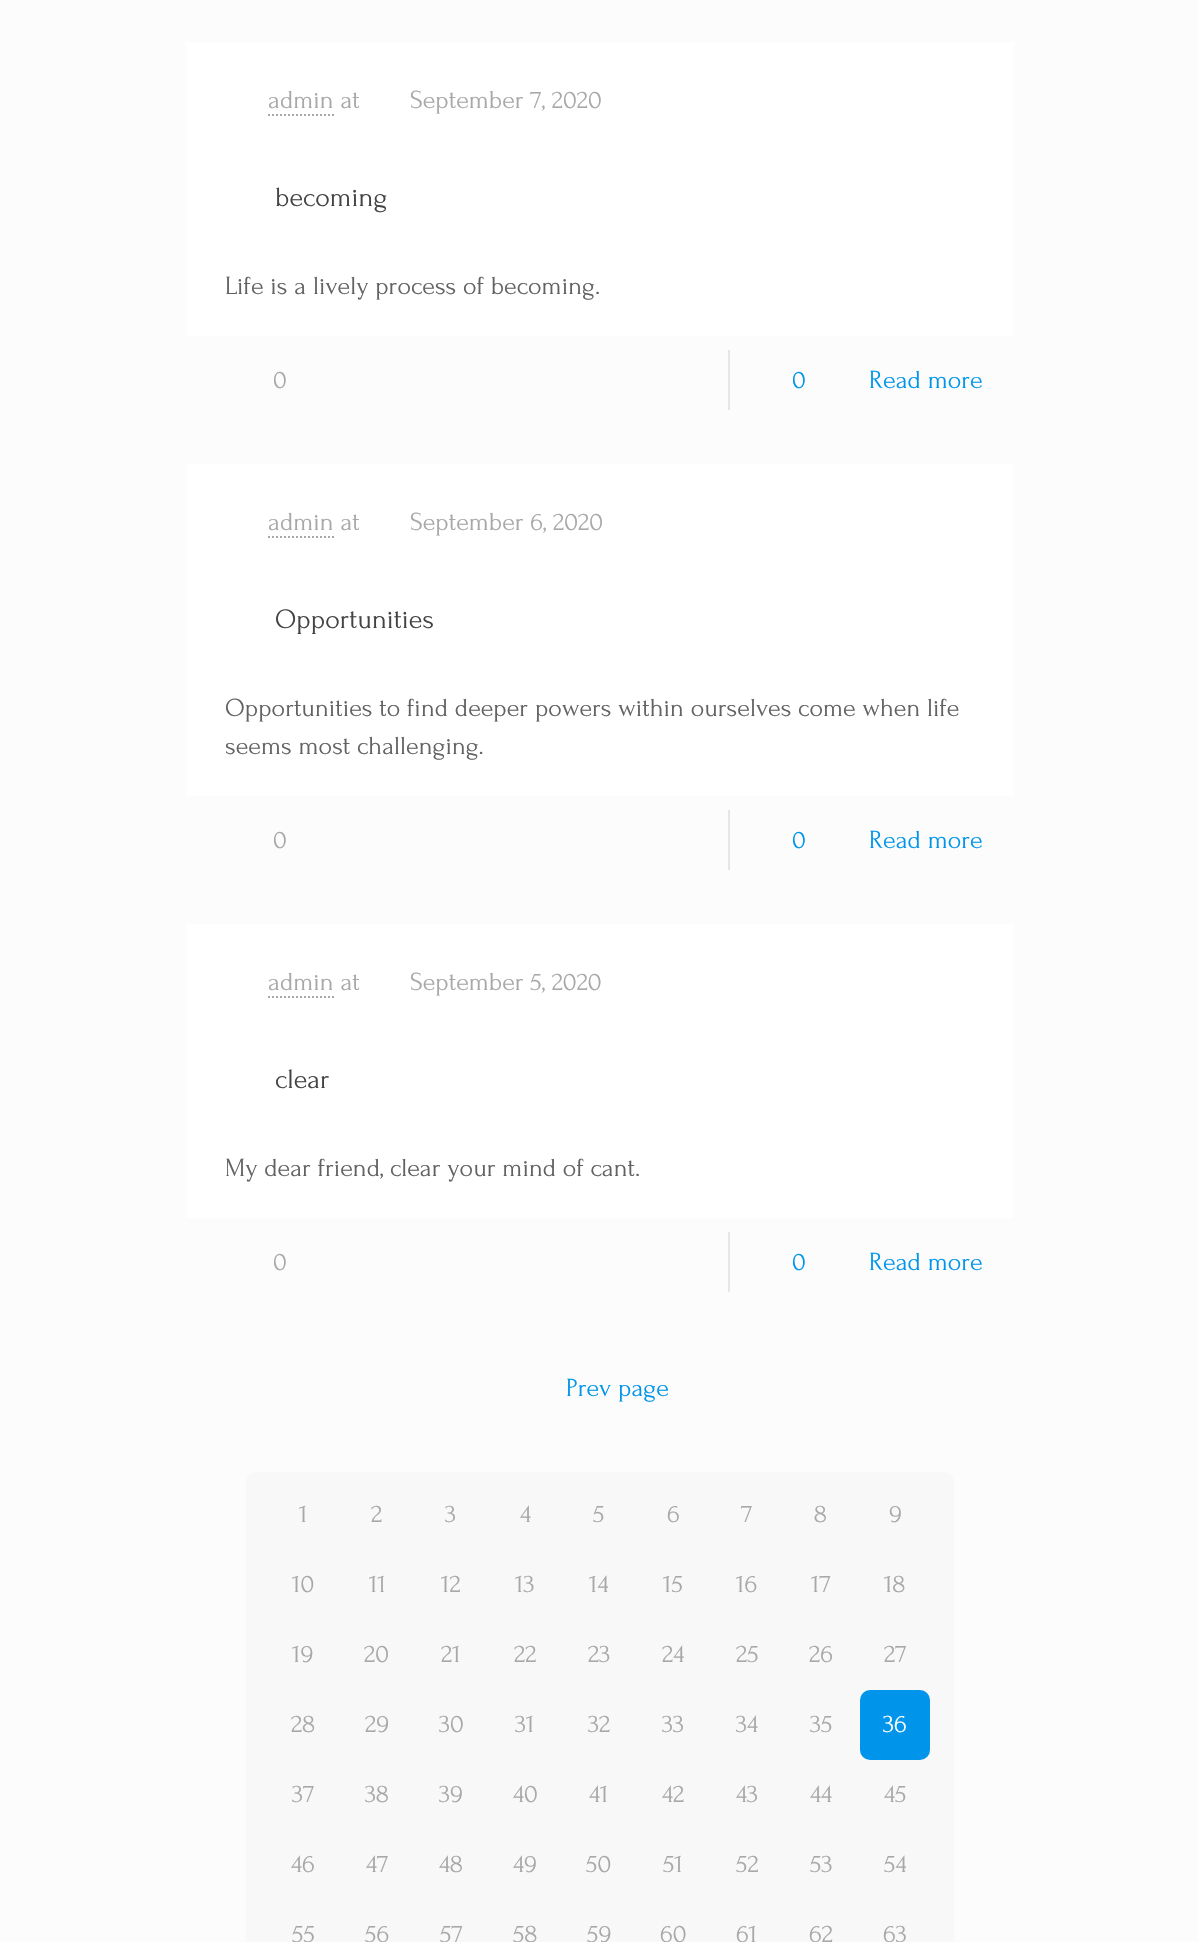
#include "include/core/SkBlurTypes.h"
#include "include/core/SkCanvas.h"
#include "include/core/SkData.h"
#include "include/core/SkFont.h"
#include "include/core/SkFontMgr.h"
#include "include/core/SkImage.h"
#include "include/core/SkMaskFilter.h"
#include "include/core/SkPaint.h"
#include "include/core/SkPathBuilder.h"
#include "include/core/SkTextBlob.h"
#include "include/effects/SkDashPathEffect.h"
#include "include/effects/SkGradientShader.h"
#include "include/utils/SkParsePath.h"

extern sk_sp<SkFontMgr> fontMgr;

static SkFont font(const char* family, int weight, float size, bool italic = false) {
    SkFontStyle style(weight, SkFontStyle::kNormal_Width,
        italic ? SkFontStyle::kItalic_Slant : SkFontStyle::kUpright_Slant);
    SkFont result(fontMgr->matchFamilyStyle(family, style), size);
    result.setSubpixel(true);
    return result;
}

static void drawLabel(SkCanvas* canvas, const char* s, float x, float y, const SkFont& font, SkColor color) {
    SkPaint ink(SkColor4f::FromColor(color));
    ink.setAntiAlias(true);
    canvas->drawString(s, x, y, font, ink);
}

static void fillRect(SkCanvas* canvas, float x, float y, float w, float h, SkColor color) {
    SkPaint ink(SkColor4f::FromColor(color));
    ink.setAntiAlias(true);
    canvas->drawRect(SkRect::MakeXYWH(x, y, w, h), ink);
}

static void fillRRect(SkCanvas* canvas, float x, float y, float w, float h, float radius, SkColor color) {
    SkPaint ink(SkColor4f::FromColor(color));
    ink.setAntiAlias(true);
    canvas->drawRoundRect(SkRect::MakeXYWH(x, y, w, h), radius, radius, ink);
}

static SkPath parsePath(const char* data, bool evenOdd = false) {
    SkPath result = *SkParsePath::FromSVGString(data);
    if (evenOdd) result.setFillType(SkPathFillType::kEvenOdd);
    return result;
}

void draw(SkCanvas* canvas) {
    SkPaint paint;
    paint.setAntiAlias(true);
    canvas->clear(0xFFFCFCFC);
    fillRect(canvas, 186, 42, 828, 294, 0xFFFFFFFF);
    SkFont font1 = font("Forum", 400, 26);
    drawLabel(canvas, "admin at", 268, 108, font1, 0xFFA8A8A8);
    paint.setStroke(true);
    paint.setStrokeWidth(2);
    paint.setColor(0xFFA8A8A8);
    paint.setPathEffect(SkDashPathEffect::Make({{2, 2}}, 0));
    canvas->drawPath(parsePath("M268 115H334"), paint);
    paint.setPathEffect(nullptr);
    drawLabel(canvas, "September 7, 2020", 410, 108, font1, 0xFFA8A8A8);
    SkFont font2 = font("Forum", 400, 28);
    drawLabel(canvas, "becoming", 275, 206, font2, 0xFF444444);
    drawLabel(canvas, "Life is a lively process of becoming.", 225, 294, font1, 0xFF626262);
    drawLabel(canvas, "0", 273, 388, font1, 0xFFA8A8A8);
    fillRect(canvas, 728, 350, 2, 60, 0xFFE6E6E6);
    drawLabel(canvas, "0", 792, 388, font1, 0xFF0095EB);
    drawLabel(canvas, "Read more", 869, 388, font1, 0xFF0095EB);
    fillRect(canvas, 186, 464, 828, 332, 0xFFFFFFFF);
    drawLabel(canvas, "admin at", 268, 530, font1, 0xFFA8A8A8);
    paint.setPathEffect(SkDashPathEffect::Make({{2, 2}}, 0));
    canvas->drawPath(parsePath("M268 537H334"), paint);
    paint.setPathEffect(nullptr);
    drawLabel(canvas, "September 6, 2020", 410, 530, font1, 0xFFA8A8A8);
    drawLabel(canvas, "Opportunities", 275, 628, font2, 0xFF444444);
    drawLabel(canvas, "Opportunities to find deeper powers within ourselves come when life", 225, 716, font1, 0xFF626262);
    drawLabel(canvas, "seems most challenging.", 225, 754, font1, 0xFF626262);
    drawLabel(canvas, "0", 273, 848, font1, 0xFFA8A8A8);
    fillRect(canvas, 728, 810, 2, 60, 0xFFE6E6E6);
    drawLabel(canvas, "0", 792, 848, font1, 0xFF0095EB);
    drawLabel(canvas, "Read more", 869, 848, font1, 0xFF0095EB);
    fillRect(canvas, 186, 924, 828, 294, 0xFFFFFFFF);
    drawLabel(canvas, "admin at", 268, 990, font1, 0xFFA8A8A8);
    paint.setPathEffect(SkDashPathEffect::Make({{2, 2}}, 0));
    canvas->drawPath(parsePath("M268 997H334"), paint);
    paint.setPathEffect(nullptr);
    drawLabel(canvas, "September 5, 2020", 410, 990, font1, 0xFFA8A8A8);
    drawLabel(canvas, "clear", 275, 1088, font2, 0xFF444444);
    drawLabel(canvas, "My dear friend, clear your mind of cant.", 225, 1176, font1, 0xFF626262);
    drawLabel(canvas, "0", 273, 1270, font1, 0xFFA8A8A8);
    fillRect(canvas, 728, 1232, 2, 60, 0xFFE6E6E6);
    drawLabel(canvas, "0", 792, 1270, font1, 0xFF0095EB);
    drawLabel(canvas, "Read more", 869, 1270, font1, 0xFF0095EB);
    drawLabel(canvas, "Prev page", 566, 1396, font1, 0xFF0095EB);
    fillRRect(canvas, 246, 1472, 708, 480, 10, 0xFFF8F8F8);
    drawLabel(canvas, "1", 299, 1522, font1, 0xFFA8A8A8);
    drawLabel(canvas, "2", 371, 1522, font1, 0xFFA8A8A8);
    drawLabel(canvas, "3", 445, 1522, font1, 0xFFA8A8A8);
    drawLabel(canvas, "4", 520, 1522, font1, 0xFFA8A8A8);
    drawLabel(canvas, "5", 593, 1522, font1, 0xFFA8A8A8);
    drawLabel(canvas, "6", 667, 1522, font1, 0xFFA8A8A8);
    drawLabel(canvas, "7", 741, 1522, font1, 0xFFA8A8A8);
    drawLabel(canvas, "8", 814, 1522, font1, 0xFFA8A8A8);
    drawLabel(canvas, "9", 889, 1522, font1, 0xFFA8A8A8);
    drawLabel(canvas, "10", 292, 1592, font1, 0xFFA8A8A8);
    drawLabel(canvas, "11", 369, 1592, font1, 0xFFA8A8A8);
    drawLabel(canvas, "12", 441, 1592, font1, 0xFFA8A8A8);
    drawLabel(canvas, "13", 515, 1592, font1, 0xFFA8A8A8);
    drawLabel(canvas, "14", 589, 1592, font1, 0xFFA8A8A8);
    drawLabel(canvas, "15", 663, 1592, font1, 0xFFA8A8A8);
    drawLabel(canvas, "16", 736, 1592, font1, 0xFFA8A8A8);
    drawLabel(canvas, "17", 811, 1592, font1, 0xFFA8A8A8);
    drawLabel(canvas, "18", 884, 1592, font1, 0xFFA8A8A8);
    drawLabel(canvas, "19", 292, 1662, font1, 0xFFA8A8A8);
    drawLabel(canvas, "20", 364, 1662, font1, 0xFFA8A8A8);
    drawLabel(canvas, "21", 441, 1662, font1, 0xFFA8A8A8);
    drawLabel(canvas, "22", 514, 1662, font1, 0xFFA8A8A8);
    drawLabel(canvas, "23", 588, 1662, font1, 0xFFA8A8A8);
    drawLabel(canvas, "24", 662, 1662, font1, 0xFFA8A8A8);
    drawLabel(canvas, "25", 736, 1662, font1, 0xFFA8A8A8);
    drawLabel(canvas, "26", 809, 1662, font1, 0xFFA8A8A8);
    drawLabel(canvas, "27", 884, 1662, font1, 0xFFA8A8A8);
    drawLabel(canvas, "28", 291, 1732, font1, 0xFFA8A8A8);
    drawLabel(canvas, "29", 365, 1732, font1, 0xFFA8A8A8);
    drawLabel(canvas, "30", 439, 1732, font1, 0xFFA8A8A8);
    drawLabel(canvas, "31", 515, 1732, font1, 0xFFA8A8A8);
    drawLabel(canvas, "32", 588, 1732, font1, 0xFFA8A8A8);
    drawLabel(canvas, "33", 662, 1732, font1, 0xFFA8A8A8);
    drawLabel(canvas, "34", 736, 1732, font1, 0xFFA8A8A8);
    drawLabel(canvas, "35", 810, 1732, font1, 0xFFA8A8A8);
    fillRRect(canvas, 860, 1690, 70, 70, 10, 0xFF0095EB);
    drawLabel(canvas, "36", 883, 1732, font1, 0xFFFFFFFF);
    drawLabel(canvas, "37", 292, 1802, font1, 0xFFA8A8A8);
    drawLabel(canvas, "38", 365, 1802, font1, 0xFFA8A8A8);
    drawLabel(canvas, "39", 439, 1802, font1, 0xFFA8A8A8);
    drawLabel(canvas, "40", 513, 1802, font1, 0xFFA8A8A8);
    drawLabel(canvas, "41", 589, 1802, font1, 0xFFA8A8A8);
    drawLabel(canvas, "42", 662, 1802, font1, 0xFFA8A8A8);
    drawLabel(canvas, "43", 736, 1802, font1, 0xFFA8A8A8);
    drawLabel(canvas, "44", 810, 1802, font1, 0xFFA8A8A8);
    drawLabel(canvas, "45", 884, 1802, font1, 0xFFA8A8A8);
    drawLabel(canvas, "46", 291, 1872, font1, 0xFFA8A8A8);
    drawLabel(canvas, "47", 366, 1872, font1, 0xFFA8A8A8);
    drawLabel(canvas, "48", 439, 1872, font1, 0xFFA8A8A8);
    drawLabel(canvas, "49", 513, 1872, font1, 0xFFA8A8A8);
    drawLabel(canvas, "50", 586, 1872, font1, 0xFFA8A8A8);
    drawLabel(canvas, "51", 663, 1872, font1, 0xFFA8A8A8);
    drawLabel(canvas, "52", 736, 1872, font1, 0xFFA8A8A8);
    drawLabel(canvas, "53", 810, 1872, font1, 0xFFA8A8A8);
    drawLabel(canvas, "54", 884, 1872, font1, 0xFFA8A8A8);
    drawLabel(canvas, "55", 292, 1942, font1, 0xFFA8A8A8);
    drawLabel(canvas, "56", 365, 1942, font1, 0xFFA8A8A8);
    drawLabel(canvas, "57", 440, 1942, font1, 0xFFA8A8A8);
    drawLabel(canvas, "58", 513, 1942, font1, 0xFFA8A8A8);
    drawLabel(canvas, "59", 587, 1942, font1, 0xFFA8A8A8);
    drawLabel(canvas, "60", 660, 1942, font1, 0xFFA8A8A8);
    drawLabel(canvas, "61", 736, 1942, font1, 0xFFA8A8A8);
    drawLabel(canvas, "62", 809, 1942, font1, 0xFFA8A8A8);
    drawLabel(canvas, "63", 883, 1942, font1, 0xFFA8A8A8);
}
